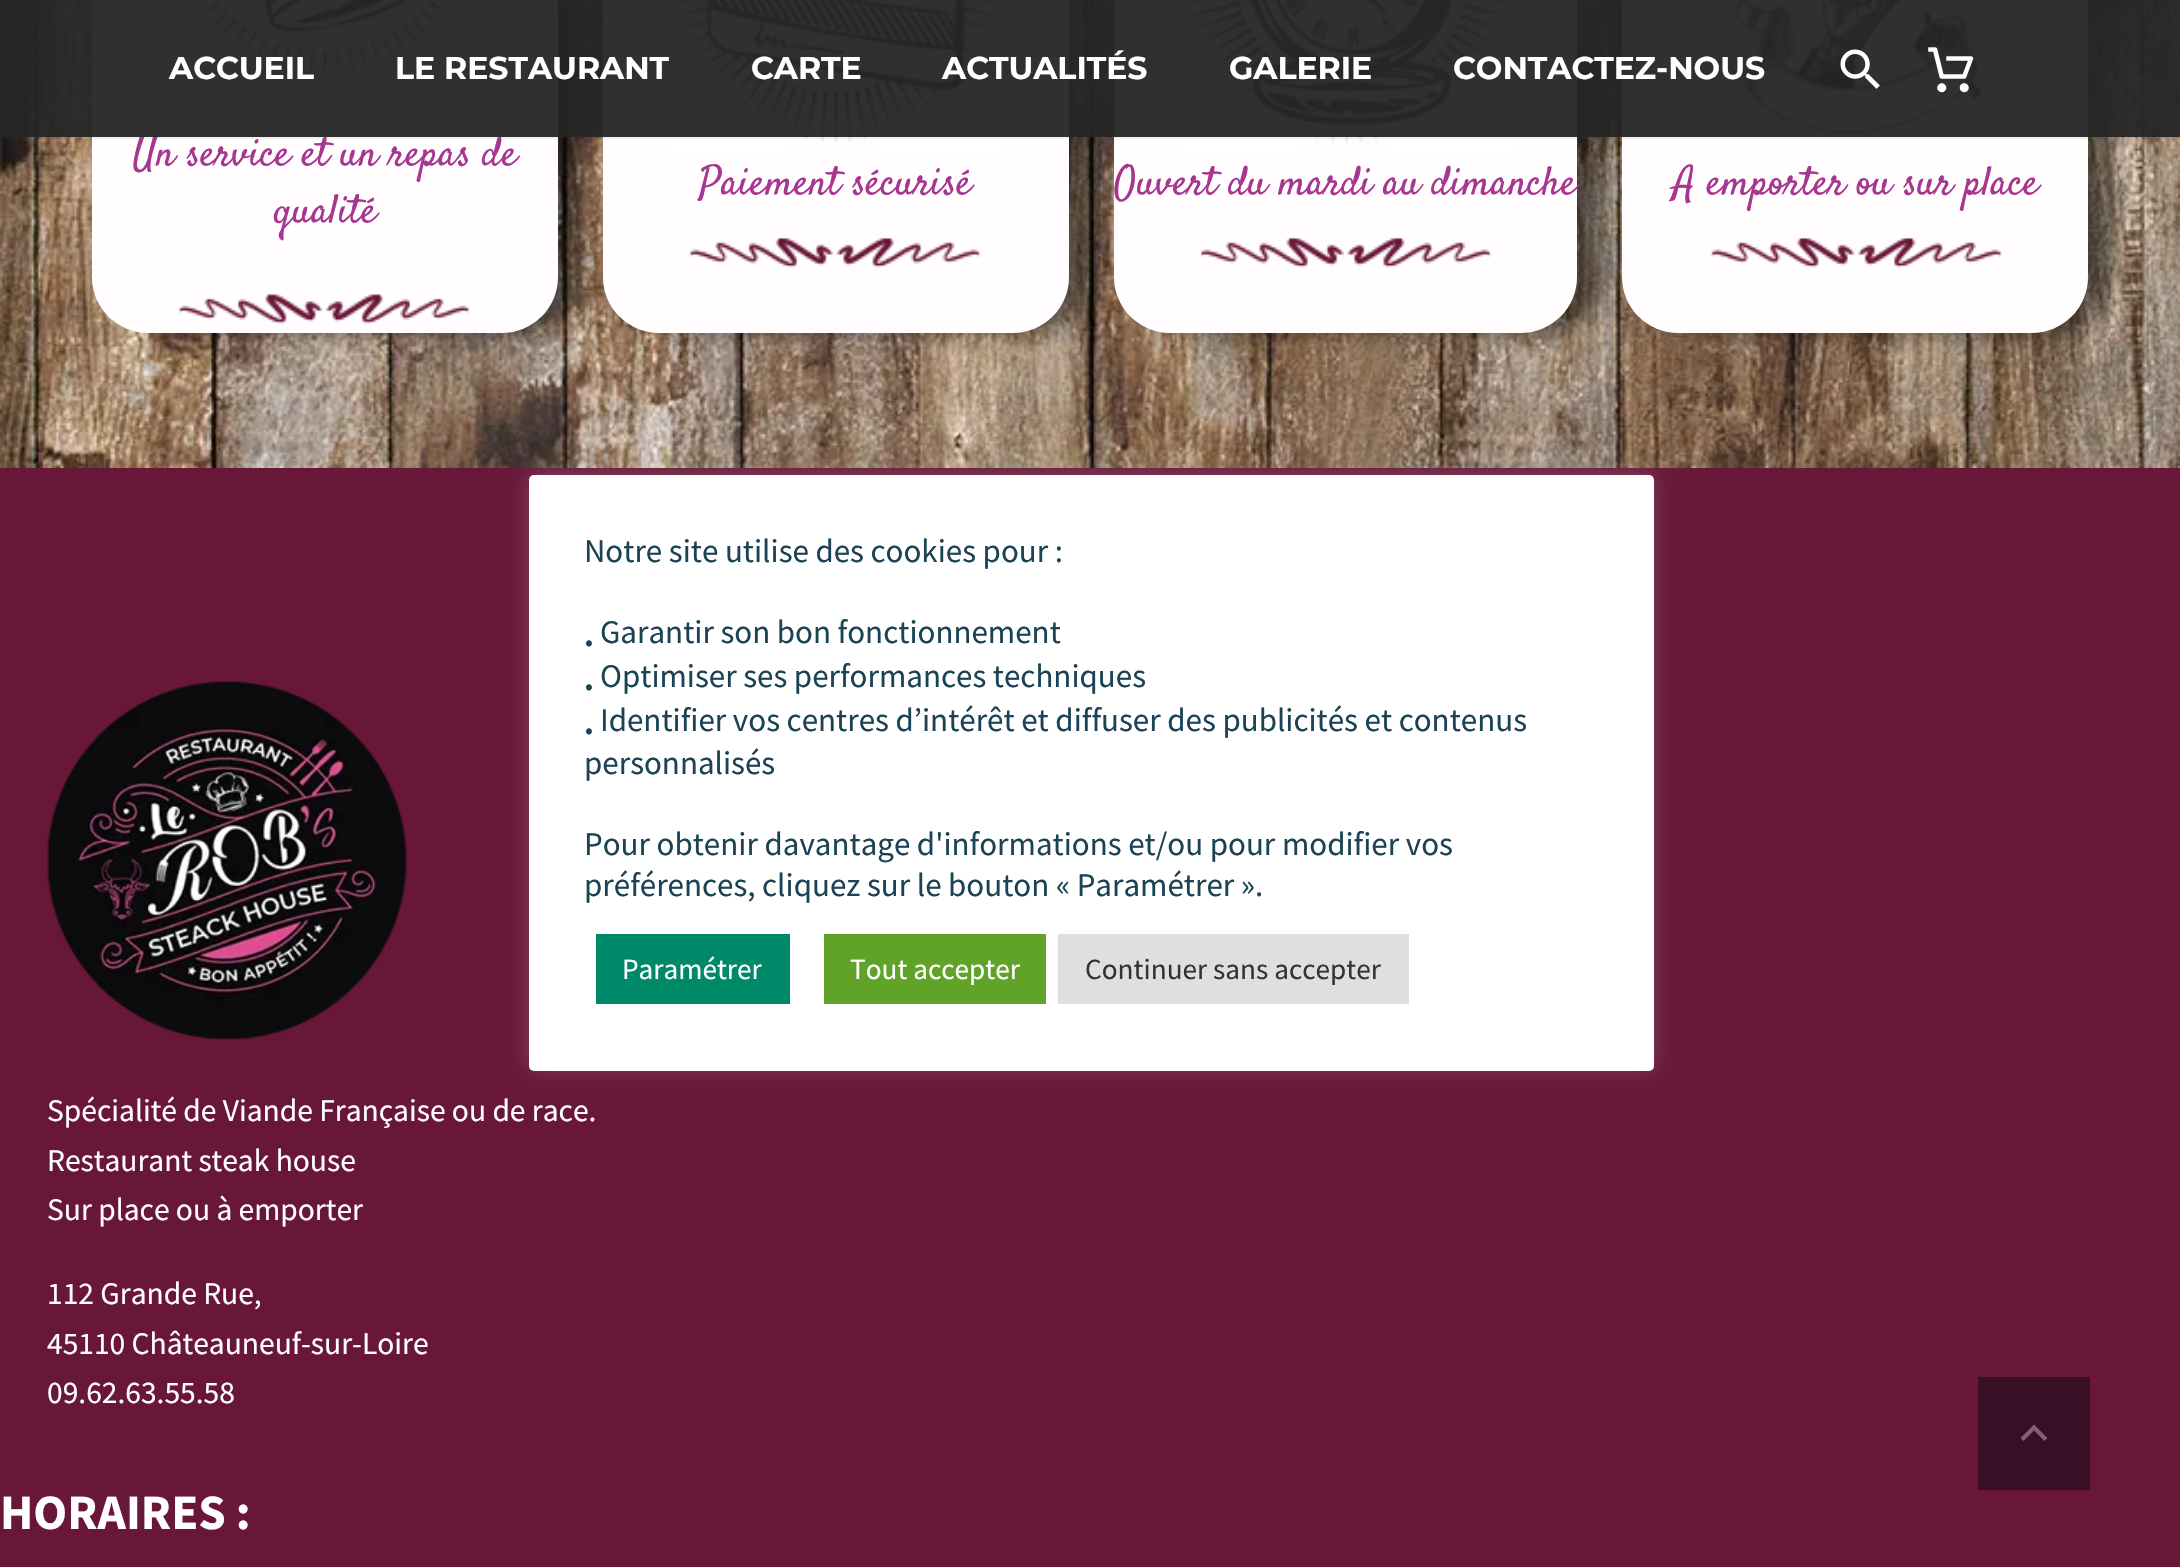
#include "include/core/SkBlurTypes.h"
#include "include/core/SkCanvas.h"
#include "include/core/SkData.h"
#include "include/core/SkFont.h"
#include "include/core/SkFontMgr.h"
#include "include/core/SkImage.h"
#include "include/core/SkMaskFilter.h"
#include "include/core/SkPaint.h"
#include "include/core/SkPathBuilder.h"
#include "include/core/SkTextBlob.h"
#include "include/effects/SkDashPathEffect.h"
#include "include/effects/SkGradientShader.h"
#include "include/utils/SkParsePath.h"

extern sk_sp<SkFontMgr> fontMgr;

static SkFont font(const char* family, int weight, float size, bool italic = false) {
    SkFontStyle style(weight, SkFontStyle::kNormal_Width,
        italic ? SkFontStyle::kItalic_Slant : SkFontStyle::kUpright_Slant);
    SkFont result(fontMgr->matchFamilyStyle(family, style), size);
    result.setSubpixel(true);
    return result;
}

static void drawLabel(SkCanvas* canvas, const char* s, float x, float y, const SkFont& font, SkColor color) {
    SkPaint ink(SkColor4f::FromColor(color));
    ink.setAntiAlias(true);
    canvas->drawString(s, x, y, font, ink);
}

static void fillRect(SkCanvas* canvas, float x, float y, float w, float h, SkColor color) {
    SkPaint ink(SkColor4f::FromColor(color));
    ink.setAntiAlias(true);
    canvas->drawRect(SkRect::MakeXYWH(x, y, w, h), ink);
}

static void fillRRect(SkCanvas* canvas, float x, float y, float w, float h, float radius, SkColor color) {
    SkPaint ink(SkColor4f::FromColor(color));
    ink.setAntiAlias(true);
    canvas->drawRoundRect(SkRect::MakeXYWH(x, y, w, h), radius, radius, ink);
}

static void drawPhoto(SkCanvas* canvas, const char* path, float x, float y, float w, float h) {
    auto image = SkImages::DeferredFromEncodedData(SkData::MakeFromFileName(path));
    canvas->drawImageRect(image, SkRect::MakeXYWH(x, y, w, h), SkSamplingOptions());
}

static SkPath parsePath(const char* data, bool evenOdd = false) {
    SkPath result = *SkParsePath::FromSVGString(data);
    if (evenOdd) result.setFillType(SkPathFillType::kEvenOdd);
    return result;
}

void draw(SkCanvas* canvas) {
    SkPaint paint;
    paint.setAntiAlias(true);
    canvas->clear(0xFFFFFFFF);
    drawPhoto(canvas, "assets/img3.png", 0, 0, 2180, 468);
    paint.setColor(0x80000000);
    paint.setMaskFilter(SkMaskFilter::MakeBlur(kNormal_SkBlurStyle, 11));
    canvas->drawRoundRect(SkRect::MakeXYWH(119, -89, 466, 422), 56, 56, paint);
    paint.setMaskFilter(nullptr);
    fillRRect(canvas, 92, -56, 466, 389, 56, 0xFFFFFDFD);
    drawPhoto(canvas, "assets/img4.png", 170, 0, 308, 82);
    paint.setMaskFilter(SkMaskFilter::MakeBlur(kNormal_SkBlurStyle, 11));
    canvas->drawRoundRect(SkRect::MakeXYWH(630, -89, 466, 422), 56, 56, paint);
    paint.setMaskFilter(nullptr);
    fillRRect(canvas, 603, -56, 466, 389, 56, 0xFFFFFDFD);
    drawPhoto(canvas, "assets/img6.png", 670, 0, 335, 151);
    paint.setMaskFilter(SkMaskFilter::MakeBlur(kNormal_SkBlurStyle, 11));
    canvas->drawRoundRect(SkRect::MakeXYWH(1141, -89, 463, 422), 56, 56, paint);
    paint.setMaskFilter(nullptr);
    fillRRect(canvas, 1114, -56, 463, 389, 56, 0xFFFFFDFD);
    drawPhoto(canvas, "assets/img8.png", 1181, 0, 335, 151);
    paint.setMaskFilter(SkMaskFilter::MakeBlur(kNormal_SkBlurStyle, 11));
    canvas->drawRoundRect(SkRect::MakeXYWH(1649, -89, 466, 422), 56, 56, paint);
    paint.setMaskFilter(nullptr);
    fillRRect(canvas, 1622, -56, 466, 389, 56, 0xFFFFFDFD);
    drawPhoto(canvas, "assets/img10.png", 1728, 0, 263, 135);
    canvas->save();
    canvas->clipRect(SkRect::MakeXYWH(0, 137, 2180, 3));
    paint.setColor(0x33384554);
    paint.setMaskFilter(SkMaskFilter::MakeBlur(kNormal_SkBlurStyle, 2));
    canvas->drawRect(SkRect::MakeXYWH(0, 0, 2180, 137), paint);
    paint.setMaskFilter(nullptr);
    canvas->restore();
    SkFont font1 = font("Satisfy", 400, 40.5f);
    drawLabel(canvas, "Un service et un repas de", 133, 165, font1, 0xFFA73691);
    fillRect(canvas, 0, 0, 2180, 137, 0xF2252525);
    SkFont font2 = font("Montserrat", 700, 31.5f);
    drawLabel(canvas, "ACCUEIL", 169, 79, font2, 0xFFFFFFFF);
    drawLabel(canvas, "LE RESTAURANT", 395, 79, font2, 0xFFFFFFFF);
    drawLabel(canvas, "CARTE", 751, 79, font2, 0xFFFFFFFF);
    drawLabel(canvas, "ACTUALITÉS", 942, 79, font2, 0xFFFFFFFF);
    drawLabel(canvas, "GALERIE", 1229, 79, font2, 0xFFFFFFFF);
    drawLabel(canvas, "CONTACTEZ-NOUS", 1453, 79, font2, 0xFFFFFFFF);
    drawPhoto(canvas, "assets/img1.png", 1840, 49, 40, 40);
    drawPhoto(canvas, "assets/img2.png", 1928, 47, 46, 46);
    drawLabel(canvas, "qualité", 274, 222, font1, 0xFFA73691);
    drawPhoto(canvas, "assets/img5.png", 178, 293, 292, 31);
    drawLabel(canvas, "Paiement sécurisé", 699, 194, font1, 0xFFA73691);
    drawPhoto(canvas, "assets/img7.png", 688, 237, 293, 31);
    drawLabel(canvas, "Ouvert du mardi au dimanche", 1114, 194, font1, 0xFFA73691);
    drawPhoto(canvas, "assets/img9.png", 1199, 237, 293, 31);
    drawLabel(canvas, "A emporter ou sur place", 1673, 194, font1, 0xFFA73691);
    drawPhoto(canvas, "assets/img11.png", 1710, 237, 293, 31);
    fillRect(canvas, 0, 468, 2180, 1099, 0xFF691739);
    drawPhoto(canvas, "assets/img12.png", 47, 681, 361, 359);
    SkFont font3 = font("Source Sans Pro", 400, 31.5f);
    drawLabel(canvas, "Spécialité de Viande Française ou de race.", 47, 1121, font3, 0xFFFFFFFF);
    drawLabel(canvas, "Restaurant steak house", 47, 1171, font3, 0xFFFFFFFF);
    drawLabel(canvas, "Sur place ou à emporter", 47, 1220, font3, 0xFFFFFFFF);
    drawLabel(canvas, "112 Grande Rue,", 47, 1304, font3, 0xFFFFFFFF);
    drawLabel(canvas, "45110 Châteauneuf-sur-Loire", 47, 1354, font3, 0xFFFFFFFF);
    drawLabel(canvas, "09.62.63.55.58", 47, 1403, font3, 0xFFFFFFFF);
    SkFont font4 = font("Source Sans Pro", 700, 49.5f);
    drawLabel(canvas, "HORAIRES :", 0, 1529, font4, 0xFFFFFFFF);
    fillRect(canvas, 1978, 1377, 112, 113, 0xFF380F24);
    paint.setColor(0xFF816077);
    canvas->drawPath(parsePath("M2023.5 1441L2034 1430.5L2044.5 1441L2047.5 1438L2034 1424.5L2020.5 1438Z"), paint);
    paint.setColor(0x4DACABAB);
    paint.setMaskFilter(SkMaskFilter::MakeBlur(kNormal_SkBlurStyle, 11));
    canvas->drawRoundRect(SkRect::MakeXYWH(529, 473, 1125, 596), 5, 5, paint);
    paint.setMaskFilter(nullptr);
    fillRRect(canvas, 529, 475, 1125, 596, 5, 0xFFFFFFFF);
    SkFont font5 = font("Source Sans Pro", 400, 33);
    drawLabel(canvas, "Notre site utilise des cookies pour :", 584, 562, font5, 0xFF1B4355);
    SkFont font6 = font("Source Sans Pro", 700, 33);
    drawLabel(canvas, ".", 584, 646, font6, 0xFF1B4355);
    drawLabel(canvas, "Garantir son bon fonctionnement", 600, 643, font5, 0xFF1B4355);
    drawLabel(canvas, ".", 584, 690, font6, 0xFF1B4355);
    drawLabel(canvas, "Optimiser ses performances techniques", 600, 687, font5, 0xFF1B4355);
    drawLabel(canvas, ".", 584, 734, font6, 0xFF1B4355);
    drawLabel(canvas, "Identifier vos centres d’intérêt et diffuser des publicités et contenus", 600, 731, font5, 0xFF1B4355);
    drawLabel(canvas, "personnalisés", 584, 774, font5, 0xFF1B4355);
    drawLabel(canvas, "Pour obtenir davantage d'informations et/ou pour modifier vos", 584, 855, font5, 0xFF1B4355);
    drawLabel(canvas, "préférences, cliquez sur le bouton « Paramétrer ».", 584, 896, font5, 0xFF1B4355);
    fillRect(canvas, 596, 934, 194, 70, 0xFF008969);
    SkFont font7 = font("Source Sans Pro", 400, 29.25f);
    drawLabel(canvas, "Paramétrer", 622, 979, font7, 0xFFFFFFFF);
    fillRect(canvas, 824, 934, 222, 70, 0xFF61A229);
    drawLabel(canvas, "Tout accepter", 850, 979, font7, 0xFFFFFFFF);
    fillRect(canvas, 1058, 934, 351, 70, 0xFFDEDFE0);
    drawLabel(canvas, "Continuer sans accepter", 1085, 979, font7, 0xFF333333);
}
